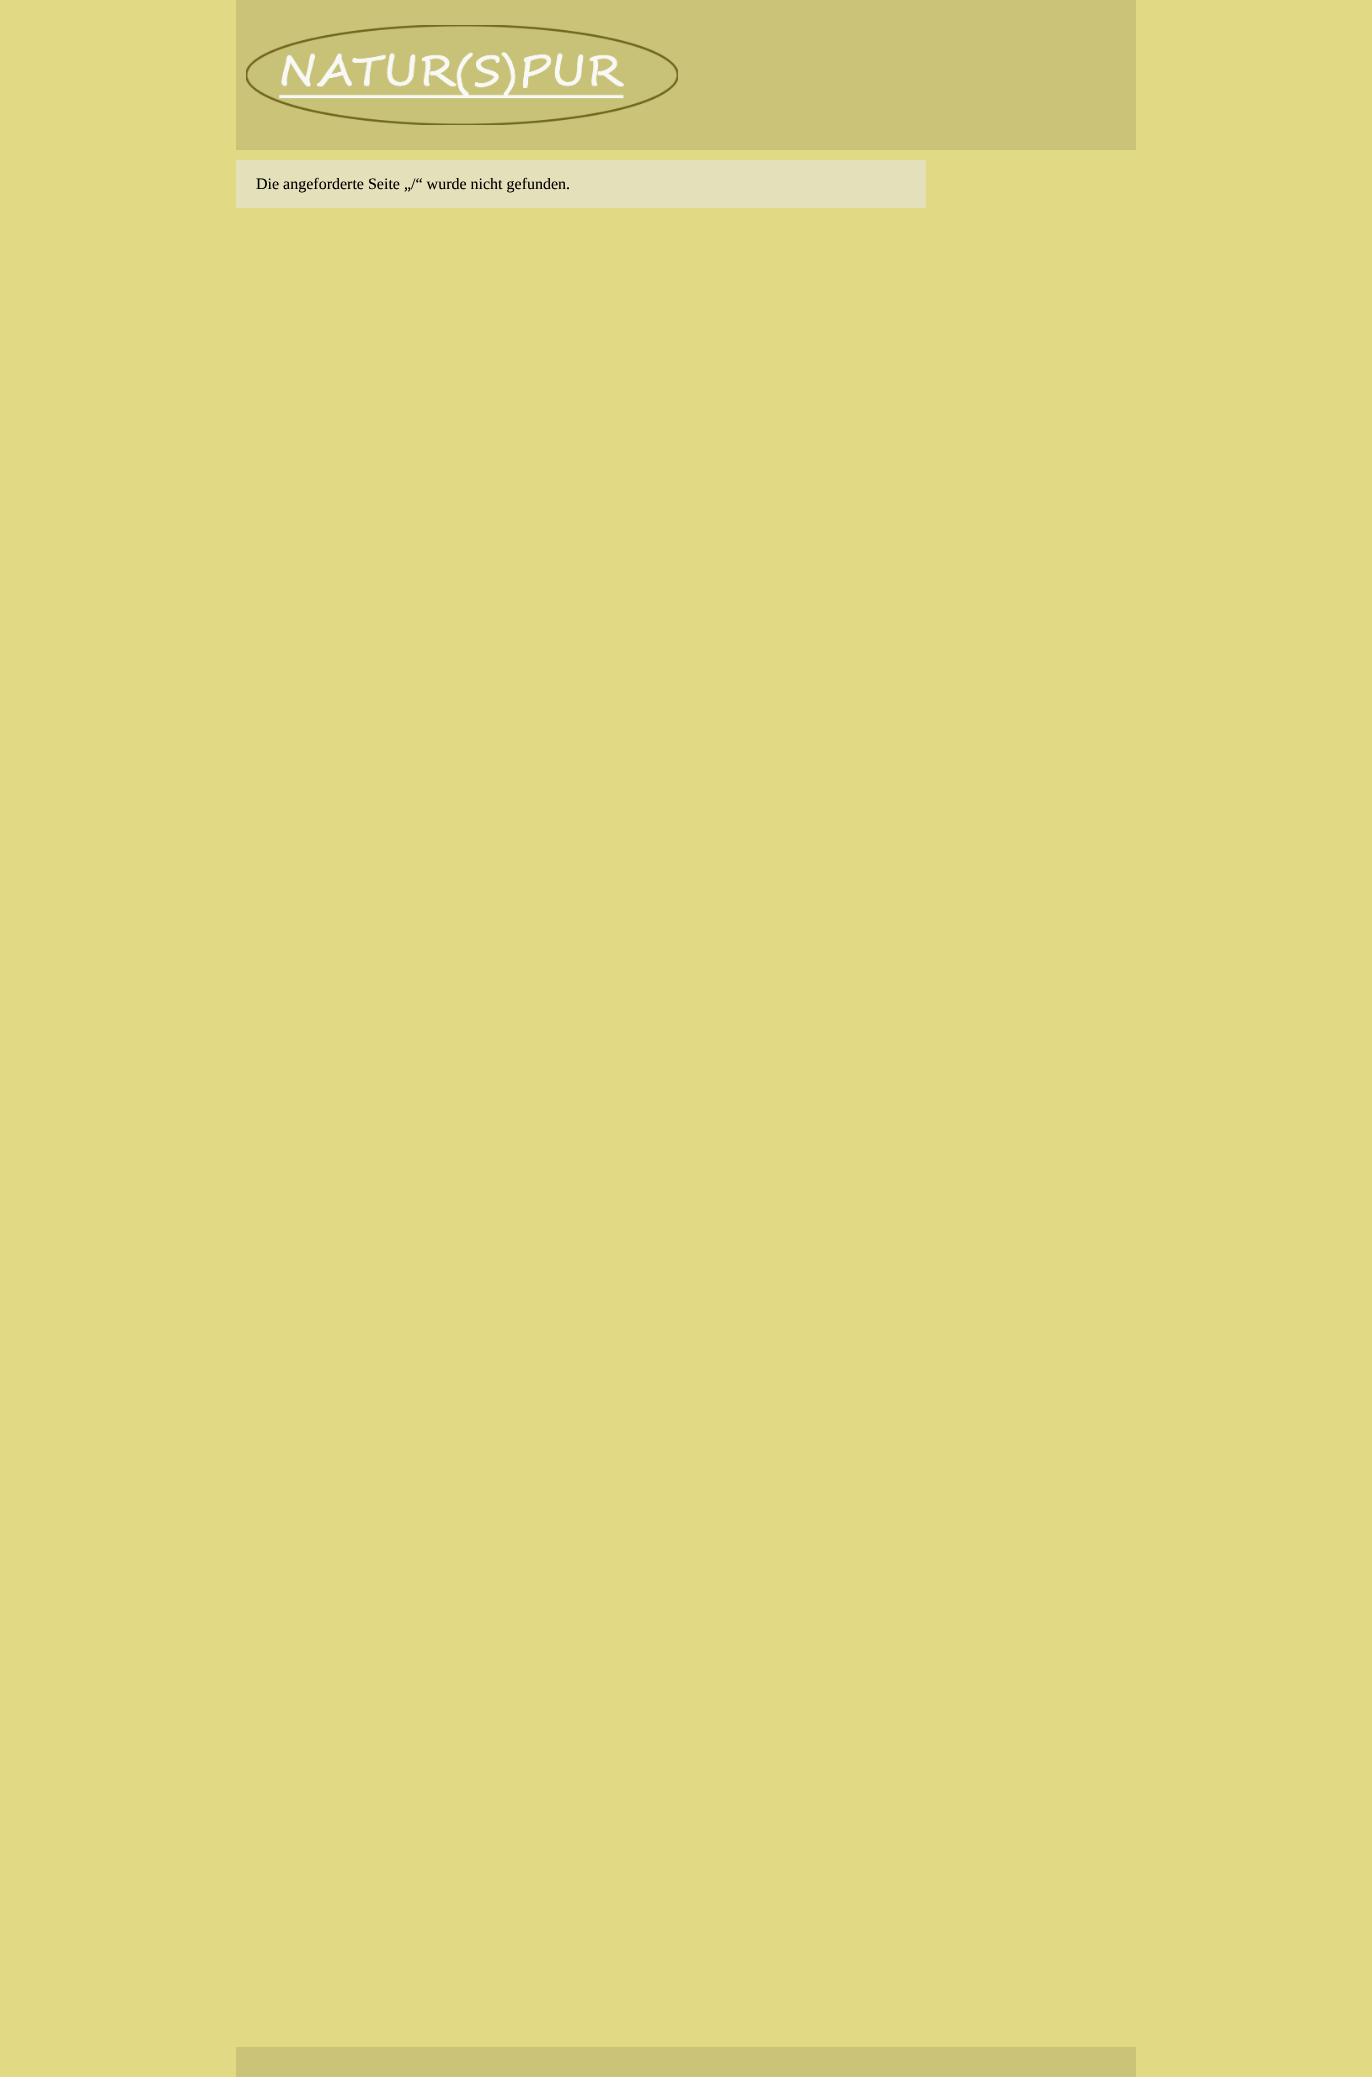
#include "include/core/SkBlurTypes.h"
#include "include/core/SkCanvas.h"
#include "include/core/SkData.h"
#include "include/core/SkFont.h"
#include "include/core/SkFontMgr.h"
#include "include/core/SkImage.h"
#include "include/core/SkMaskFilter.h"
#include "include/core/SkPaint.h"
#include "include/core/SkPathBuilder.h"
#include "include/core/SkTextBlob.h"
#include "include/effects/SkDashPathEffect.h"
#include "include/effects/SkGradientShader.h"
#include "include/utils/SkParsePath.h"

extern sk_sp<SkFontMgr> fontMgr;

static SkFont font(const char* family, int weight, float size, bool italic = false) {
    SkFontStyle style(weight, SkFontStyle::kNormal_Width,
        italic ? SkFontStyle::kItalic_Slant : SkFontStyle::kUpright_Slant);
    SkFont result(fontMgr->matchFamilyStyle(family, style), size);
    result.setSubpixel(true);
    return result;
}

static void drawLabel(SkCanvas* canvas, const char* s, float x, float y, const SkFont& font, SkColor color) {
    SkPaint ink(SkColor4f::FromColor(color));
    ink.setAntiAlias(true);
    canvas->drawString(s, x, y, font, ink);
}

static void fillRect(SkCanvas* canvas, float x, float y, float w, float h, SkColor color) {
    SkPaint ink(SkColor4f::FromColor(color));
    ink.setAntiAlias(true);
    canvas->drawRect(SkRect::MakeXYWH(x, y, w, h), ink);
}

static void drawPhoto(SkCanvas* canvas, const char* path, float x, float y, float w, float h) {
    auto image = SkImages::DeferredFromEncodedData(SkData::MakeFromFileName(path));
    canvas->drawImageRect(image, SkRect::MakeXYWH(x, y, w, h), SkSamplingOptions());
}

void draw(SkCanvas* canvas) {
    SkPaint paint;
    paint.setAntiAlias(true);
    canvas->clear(0xFFE1D983);
    fillRect(canvas, 236, 0, 900, 150, 0xFFCBC478);
    drawPhoto(canvas, "assets/img1.png", 246, 25, 432, 100);
    fillRect(canvas, 236, 160, 690, 48, 0xFFE4E0B9);
    SkFont font1 = font("Liberation Serif", 400, 16);
    drawLabel(canvas, "Die angeforderte Seite „/“ wurde nicht gefunden.", 256, 189, font1, 0xFF000000);
    fillRect(canvas, 236, 2047, 900, 30, 0xFFCBC478);
}
